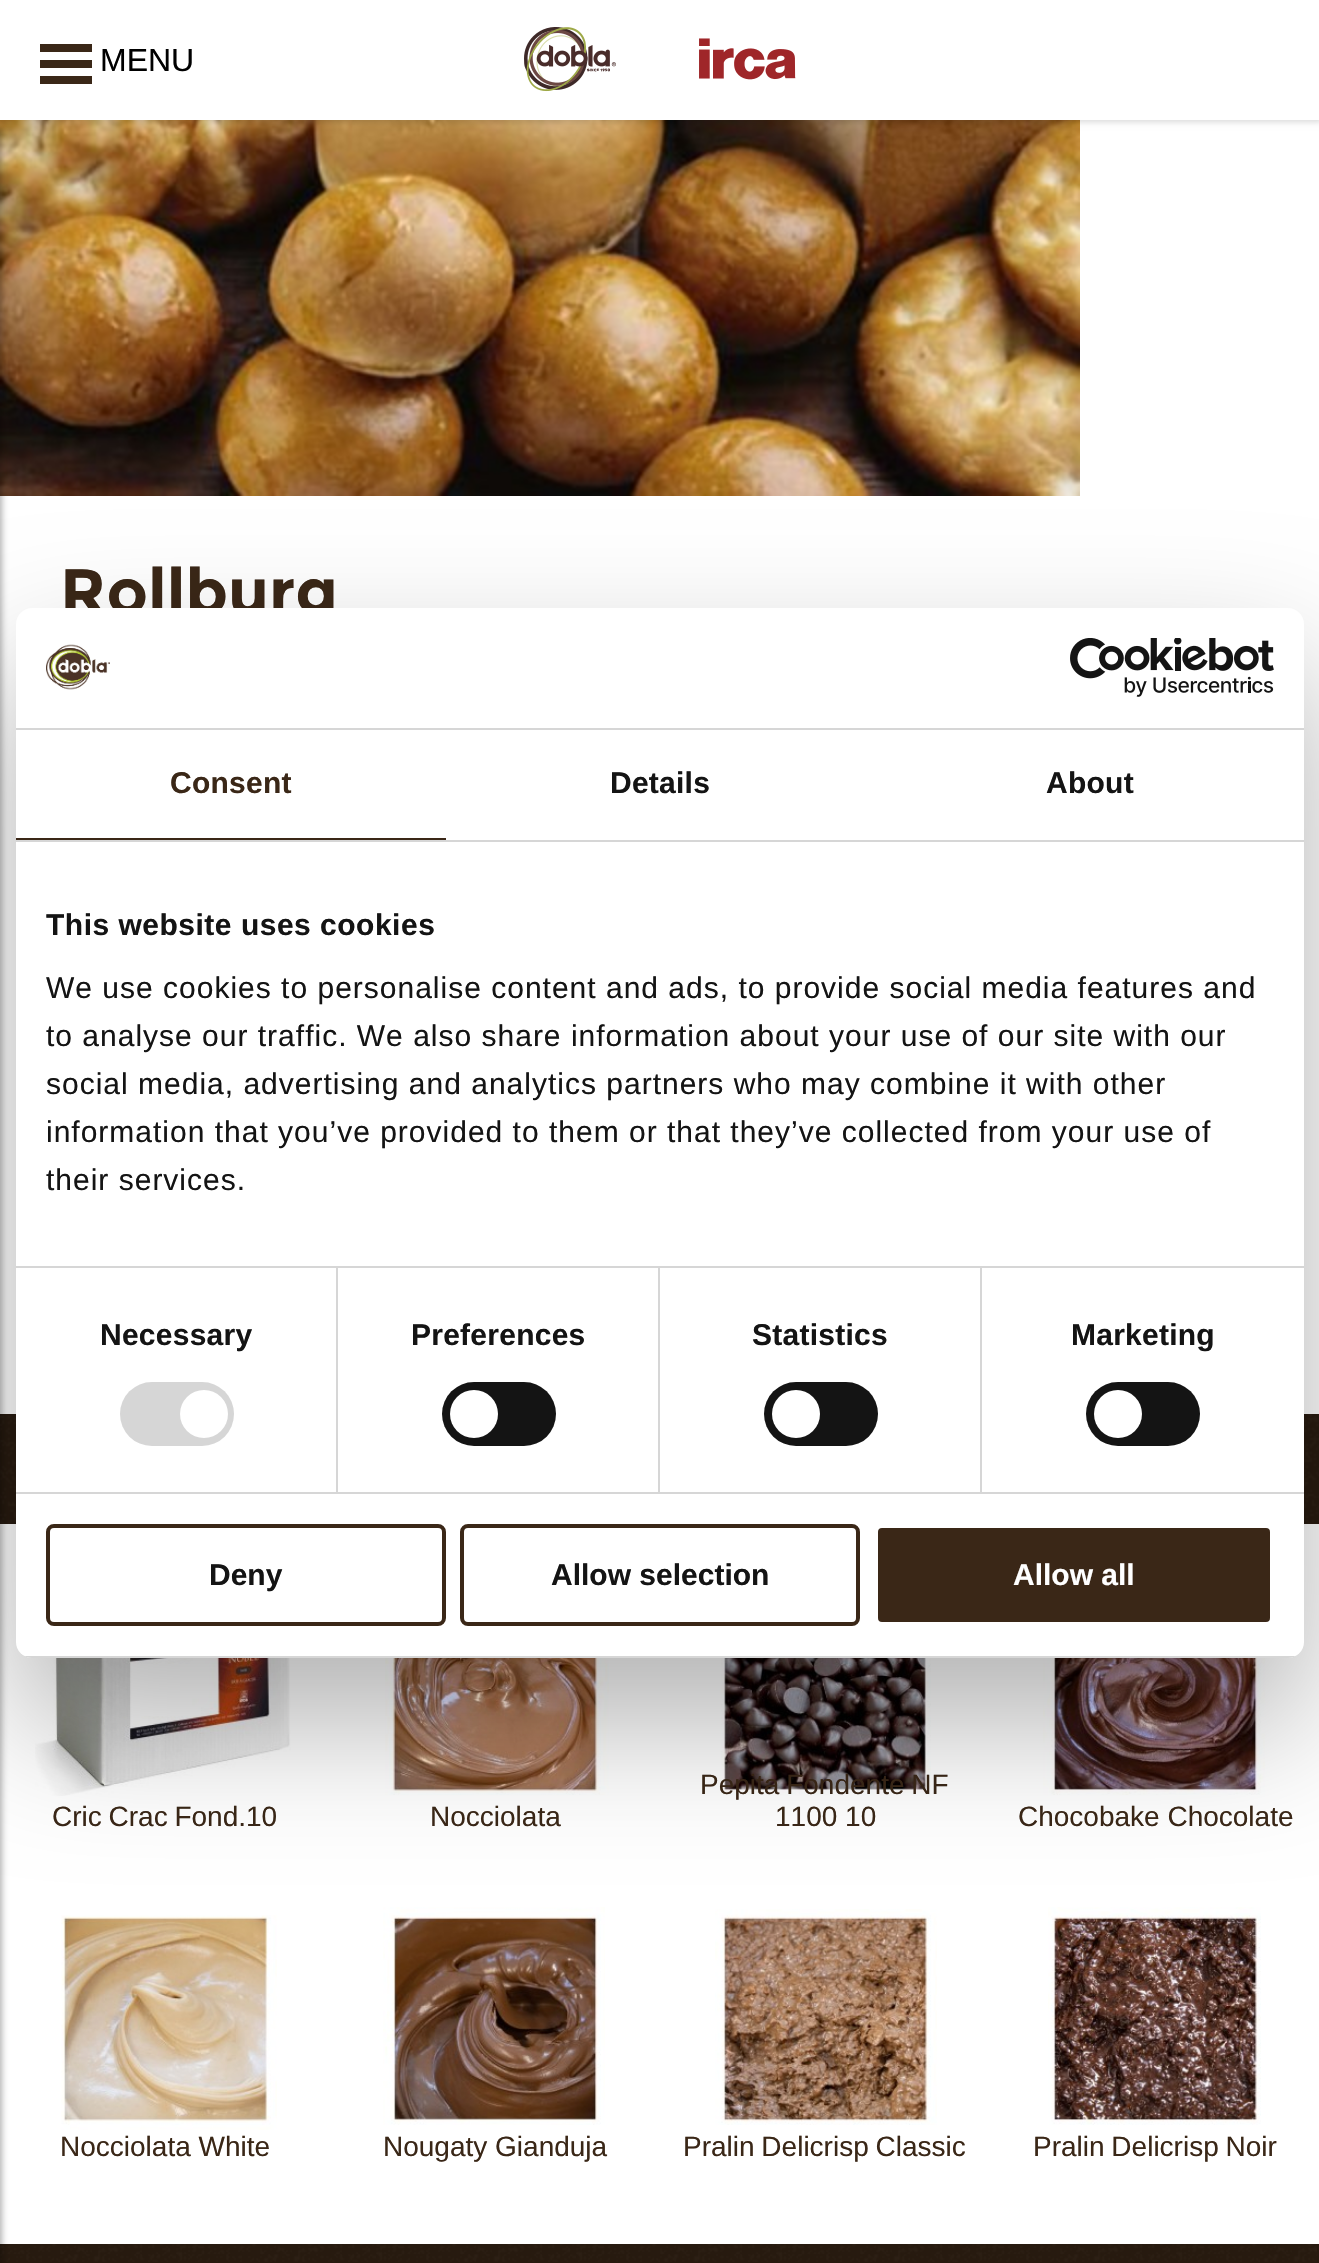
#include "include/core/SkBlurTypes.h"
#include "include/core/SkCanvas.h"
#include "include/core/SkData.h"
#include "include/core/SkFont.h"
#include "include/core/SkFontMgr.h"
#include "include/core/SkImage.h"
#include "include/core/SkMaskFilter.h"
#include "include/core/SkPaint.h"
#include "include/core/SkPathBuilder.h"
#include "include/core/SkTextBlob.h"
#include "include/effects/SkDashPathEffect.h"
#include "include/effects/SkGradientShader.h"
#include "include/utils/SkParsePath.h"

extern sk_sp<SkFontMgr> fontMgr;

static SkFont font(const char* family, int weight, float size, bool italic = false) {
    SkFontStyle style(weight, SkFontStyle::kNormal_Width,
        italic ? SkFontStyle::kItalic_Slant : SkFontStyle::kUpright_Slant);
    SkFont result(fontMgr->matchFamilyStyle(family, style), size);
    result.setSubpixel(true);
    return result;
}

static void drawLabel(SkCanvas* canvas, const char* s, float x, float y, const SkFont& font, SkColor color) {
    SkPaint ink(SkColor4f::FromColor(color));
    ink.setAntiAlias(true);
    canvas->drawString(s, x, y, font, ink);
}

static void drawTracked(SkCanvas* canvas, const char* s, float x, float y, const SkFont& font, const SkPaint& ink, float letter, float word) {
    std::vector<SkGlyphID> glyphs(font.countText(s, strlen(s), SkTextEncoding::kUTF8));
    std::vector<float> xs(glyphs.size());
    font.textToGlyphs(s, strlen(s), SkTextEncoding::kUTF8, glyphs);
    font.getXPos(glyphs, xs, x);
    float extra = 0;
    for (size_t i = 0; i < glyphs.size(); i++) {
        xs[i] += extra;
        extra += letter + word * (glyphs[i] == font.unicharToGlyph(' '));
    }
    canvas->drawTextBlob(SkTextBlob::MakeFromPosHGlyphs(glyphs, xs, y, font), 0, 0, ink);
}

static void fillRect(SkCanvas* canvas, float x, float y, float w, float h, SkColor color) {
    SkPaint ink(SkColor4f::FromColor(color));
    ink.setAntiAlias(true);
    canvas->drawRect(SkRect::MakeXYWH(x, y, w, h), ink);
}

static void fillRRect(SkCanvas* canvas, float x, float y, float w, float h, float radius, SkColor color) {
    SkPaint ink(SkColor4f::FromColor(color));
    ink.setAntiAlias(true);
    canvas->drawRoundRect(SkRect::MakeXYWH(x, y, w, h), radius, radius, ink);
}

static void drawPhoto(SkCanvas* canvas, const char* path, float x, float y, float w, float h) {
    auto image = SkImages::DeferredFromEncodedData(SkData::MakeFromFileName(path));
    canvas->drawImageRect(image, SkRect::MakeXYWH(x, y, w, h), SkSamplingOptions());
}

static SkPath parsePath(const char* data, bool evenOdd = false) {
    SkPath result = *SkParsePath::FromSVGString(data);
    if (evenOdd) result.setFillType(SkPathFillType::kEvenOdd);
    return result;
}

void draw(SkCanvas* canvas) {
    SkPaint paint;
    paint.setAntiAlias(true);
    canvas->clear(0xFFFFFFFF);
    drawPhoto(canvas, "assets/img2.png", 0, 120, 1080, 376);
    paint.setColor(0x26000000);
    paint.setMaskFilter(SkMaskFilter::MakeBlur(kNormal_SkBlurStyle, 3));
    canvas->drawRect(SkRect::MakeXYWH(-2, -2, 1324, 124), paint);
    paint.setMaskFilter(nullptr);
    fillRect(canvas, 0, 0, 1319, 120, 0xFFFFFFFF);
    fillRect(canvas, 40, 60, 52, 8, 0xFF3A2717);
    fillRect(canvas, 40, 44, 52, 8, 0xFF3A2717);
    fillRect(canvas, 40, 76, 52, 8, 0xFF3A2717);
    SkFont font1 = font("Liberation Sans", 400, 32);
    drawLabel(canvas, "MENU", 100, 71, font1, 0xFF000000);
    drawPhoto(canvas, "assets/img1.png", 524, 27, 272, 65);
    fillRect(canvas, 0, 1414, 1319, 110, 0xFF27190E);
    drawPhoto(canvas, "assets/img3.png", 0, 1414, 1319, 110);
    fillRect(canvas, 0, 2244, 1319, 19, 0xFF27190E);
    drawPhoto(canvas, "assets/img12.png", 0, 2244, 1317, 18);
    paint.setColor(0x4D000000);
    paint.setMaskFilter(SkMaskFilter::MakeBlur(kNormal_SkBlurStyle, 3));
    canvas->drawRect(SkRect::MakeXYWH(-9, 128, 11, 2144), paint);
    paint.setMaskFilter(nullptr);
    SkFont font2 = font("Montserrat", 700, 64);
    drawLabel(canvas, "Rollburg", 60, 614, font2, 0xFF3A2717);
    drawPhoto(canvas, "assets/img4.png", 35, 1658, 256, 138);
    SkFont font3 = font("Liberation Sans", 400, 28);
    paint.setColor(0xFF3A2717);
    drawTracked(canvas, "Cric Crac Fond.10", 52, 1826, font3, paint, 0, -1);
    drawPhoto(canvas, "assets/img5.png", 385, 1658, 224, 137);
    drawLabel(canvas, "Nocciolata", 430, 1826, font3, 0xFF3A2717);
    drawPhoto(canvas, "assets/img6.png", 721, 1658, 210, 137);
    drawTracked(canvas, "Pepita Fondente NF", 700, 1794, font3, paint, 0, -1);
    drawLabel(canvas, "1100 10", 775, 1826, font3, 0xFF3A2717);
    drawPhoto(canvas, "assets/img7.png", 1043, 1658, 222, 137);
    drawLabel(canvas, "Chocobake Chocolate", 1018, 1826, font3, 0xFF3A2717);
    drawPhoto(canvas, "assets/img8.png", 61, 1915, 216, 215);
    drawLabel(canvas, "Nocciolata White", 60, 2156, font3, 0xFF3A2717);
    drawPhoto(canvas, "assets/img9.png", 383, 1907, 222, 218);
    drawLabel(canvas, "Nougaty Gianduja", 383, 2156, font3, 0xFF3A2717);
    drawPhoto(canvas, "assets/img10.png", 715, 1909, 222, 216);
    drawTracked(canvas, "Pralin Delicrisp Classic", 683, 2156, font3, paint, 0, -1);
    drawPhoto(canvas, "assets/img11.png", 1048, 1907, 213, 218);
    drawTracked(canvas, "Pralin Delicrisp Noir", 1033, 2156, font3, paint, 0, -1);
    paint.setColor(0x4D000000);
    paint.setMaskFilter(SkMaskFilter::MakeBlur(kNormal_SkBlurStyle, 68));
    canvas->drawRoundRect(SkRect::MakeXYWH(16, 672, 1288, 1050), 16, 16, paint);
    paint.setMaskFilter(nullptr);
    fillRRect(canvas, 16, 608, 1288, 1050, 16, 0xFFFFFFFF);
    fillRect(canvas, 16, 728, 1288, 2, 0xFFD6D6D6);
    drawPhoto(canvas, "assets/img13.png", 46, 644, 64, 46);
    drawPhoto(canvas, "assets/img14.png", 1070, 638, 204, 59);
    fillRect(canvas, 16, 840, 1288, 2, 0xFFD6D6D6);
    fillRect(canvas, 16, 838, 430, 2, 0xFF3A2717);
    SkFont font4 = font("Liberation Sans", 700, 30);
    paint.setColor(0xFF3A2717);
    drawTracked(canvas, "Consent", 170, 793, font4, paint, 0.25f, 0);
    paint.setColor(0xFF141414);
    drawTracked(canvas, "Details", 610, 793, font4, paint, 0.25f, 0);
    drawTracked(canvas, "About", 1046, 793, font4, paint, 0.25f, 0);
    fillRect(canvas, 16, 1266, 1288, 2, 0xFFD6D6D6);
    drawTracked(canvas, "This website uses cookies", 46, 935, font4, paint, 0.5f, 0);
    SkFont font5 = font("Liberation Sans", 400, 30);
    drawTracked(canvas, "We use cookies to personalise content and ads, to provide social media features and", 46, 998, font5, paint, 1, 0);
    drawTracked(canvas, "to analyse our traffic. We also share information about your use of our site with our", 46, 1046, font5, paint, 1, 0);
    drawTracked(canvas, "social media, advertising and analytics partners who may combine it with other", 46, 1094, font5, paint, 1, 0);
    drawTracked(canvas, "information that you’ve provided to them or that they’ve collected from your use of", 46, 1142, font5, paint, 1, 0);
    drawTracked(canvas, "their services.", 46, 1190, font5, paint, 1, 0);
    fillRect(canvas, 16, 1492, 1288, 2, 0xFFD6D6D6);
    fillRect(canvas, 336, 1268, 2, 224, 0xFFD6D6D6);
    drawTracked(canvas, "Necessary", 100, 1345, font4, paint, 0.25f, 0);
    fillRRect(canvas, 120, 1382, 114, 64, 32, 0xFFD6D6D6);
    paint.setColor(0xFFFFFFFF);
    canvas->drawCircle(204, 1414, 24, paint);
    fillRect(canvas, 658, 1268, 2, 224, 0xFFD6D6D6);
    paint.setColor(0xFF141414);
    drawTracked(canvas, "Preferences", 411, 1345, font4, paint, 0.25f, 0);
    fillRRect(canvas, 442, 1382, 114, 64, 32, 0xFF141414);
    paint.setColor(0xFFFFFFFF);
    canvas->drawCircle(474, 1414, 24, paint);
    fillRect(canvas, 980, 1268, 2, 224, 0xFFD6D6D6);
    paint.setColor(0xFF141414);
    drawTracked(canvas, "Statistics", 752, 1345, font4, paint, 0.25f, 0);
    fillRRect(canvas, 764, 1382, 114, 64, 32, 0xFF141414);
    paint.setColor(0xFFFFFFFF);
    canvas->drawCircle(796, 1414, 24, paint);
    paint.setColor(0xFF141414);
    drawTracked(canvas, "Marketing", 1071, 1345, font4, paint, 0.25f, 0);
    fillRRect(canvas, 1086, 1382, 114, 64, 32, 0xFF141414);
    paint.setColor(0xFFFFFFFF);
    canvas->drawCircle(1118, 1414, 24, paint);
    canvas->save();
    canvas->clipPath(parsePath("M32 608H1288C1297 608 1304 615 1304 624V1642C1304 1651 1297 1658 1288 1658H32C23 1658 16 1651 16 1642V624C16 615 23 608 32 608Z"), true);
    fillRect(canvas, 16, 1656, 1288, 2, 0xFFD6D6D6);
    canvas->restore();
    paint.setStroke(true);
    paint.setStrokeWidth(4);
    paint.setColor(0xFF3A2717);
    canvas->drawRoundRect(SkRect::MakeXYWH(48, 1526, 396, 98), 6, 6, paint);
    drawLabel(canvas, "Deny", 209, 1585, font4, 0xFF141414);
    canvas->drawRoundRect(SkRect::MakeXYWH(462, 1526, 396, 98), 6, 6, paint);
    drawLabel(canvas, "Allow selection", 551, 1585, font4, 0xFF141414);
    paint.setStroke(false);
    canvas->drawRoundRect(SkRect::MakeXYWH(876, 1526, 396, 98), 6, 6, paint);
    paint.setStroke(true);
    paint.setColor(0xFFFFFFFF);
    canvas->drawRoundRect(SkRect::MakeXYWH(876, 1526, 396, 98), 6, 6, paint);
    drawLabel(canvas, "Allow all", 1013, 1585, font4, 0xFFFFFFFF);
}
